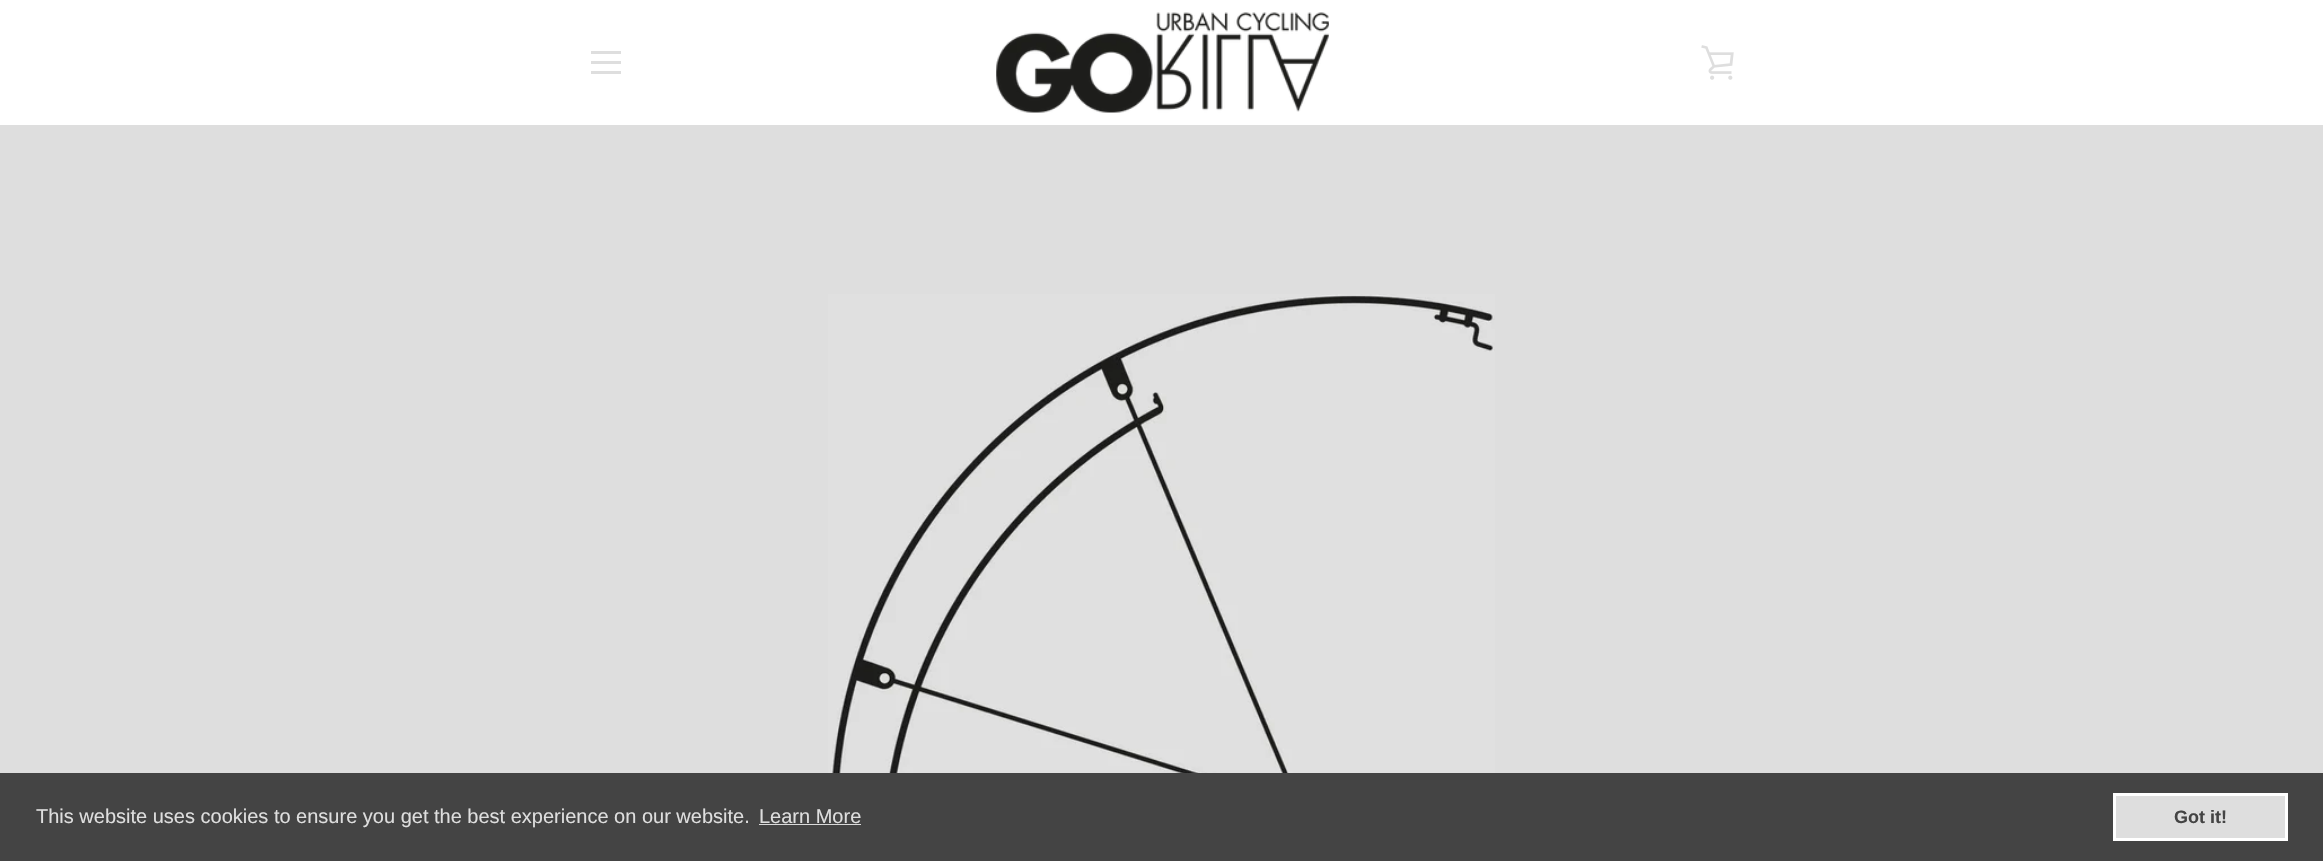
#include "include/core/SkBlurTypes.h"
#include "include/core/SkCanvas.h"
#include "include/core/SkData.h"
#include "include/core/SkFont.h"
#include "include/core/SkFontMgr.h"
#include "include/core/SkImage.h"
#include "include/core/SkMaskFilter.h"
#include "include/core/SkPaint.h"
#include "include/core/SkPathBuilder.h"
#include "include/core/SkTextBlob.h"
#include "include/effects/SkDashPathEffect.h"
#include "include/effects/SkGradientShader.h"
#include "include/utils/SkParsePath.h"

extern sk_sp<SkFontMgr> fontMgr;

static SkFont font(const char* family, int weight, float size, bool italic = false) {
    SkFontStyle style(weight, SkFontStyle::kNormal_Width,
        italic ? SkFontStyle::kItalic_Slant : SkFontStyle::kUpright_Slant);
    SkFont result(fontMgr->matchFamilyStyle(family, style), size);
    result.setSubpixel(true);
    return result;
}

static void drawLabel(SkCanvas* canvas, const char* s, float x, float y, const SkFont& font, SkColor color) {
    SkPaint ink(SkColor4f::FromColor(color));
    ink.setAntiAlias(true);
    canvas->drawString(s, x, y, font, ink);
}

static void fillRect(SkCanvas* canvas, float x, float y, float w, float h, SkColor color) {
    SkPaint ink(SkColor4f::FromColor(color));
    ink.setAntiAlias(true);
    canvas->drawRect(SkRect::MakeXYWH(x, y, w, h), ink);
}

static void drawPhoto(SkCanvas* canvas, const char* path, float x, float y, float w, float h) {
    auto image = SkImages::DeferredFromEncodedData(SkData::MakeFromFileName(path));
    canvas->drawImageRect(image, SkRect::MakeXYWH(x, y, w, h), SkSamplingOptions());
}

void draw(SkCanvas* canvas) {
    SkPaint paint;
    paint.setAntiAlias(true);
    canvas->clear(0xFFDEDEDE);
    fillRect(canvas, 0, 0, 2323, 125, 0xFFFFFFFF);
    fillRect(canvas, 591, 51, 30, 3, 0xFFDEDEDE);
    fillRect(canvas, 591, 61, 30, 3, 0xFFDEDEDE);
    fillRect(canvas, 591, 71, 30, 3, 0xFFDEDEDE);
    drawPhoto(canvas, "assets/img1.png", 996, 12, 333, 101);
    drawPhoto(canvas, "assets/img2.png", 1701, 45, 33, 35);
    drawPhoto(canvas, "assets/img3.png", 828, 294, 667, 479);
    fillRect(canvas, 0, 773, 2323, 88, 0xFF444444);
    SkFont font1 = font("Liberation Sans", 400, 20);
    drawLabel(canvas, "This website uses cookies to ensure you get the best experience on our website.", 36, 823, font1, 0xFFDEDEDE);
    drawLabel(canvas, "Learn More", 759, 823, font1, 0xFFDEDEDE);
    fillRect(canvas, 759, 824, 102, 1, 0xFFDADADA);
    paint.setColor(0xFFDEDEDE);
    canvas->drawRect(SkRect::MakeXYWH(2114.5f, 794.5f, 172, 45), paint);
    paint.setStroke(true);
    paint.setStrokeWidth(3);
    paint.setColor(0xFFFFFFFF);
    canvas->drawRect(SkRect::MakeXYWH(2114.5f, 794.5f, 172, 45), paint);
    SkFont font2 = font("Liberation Sans", 700, 18);
    drawLabel(canvas, "Got it!", 2174, 823, font2, 0xFF444444);
}
